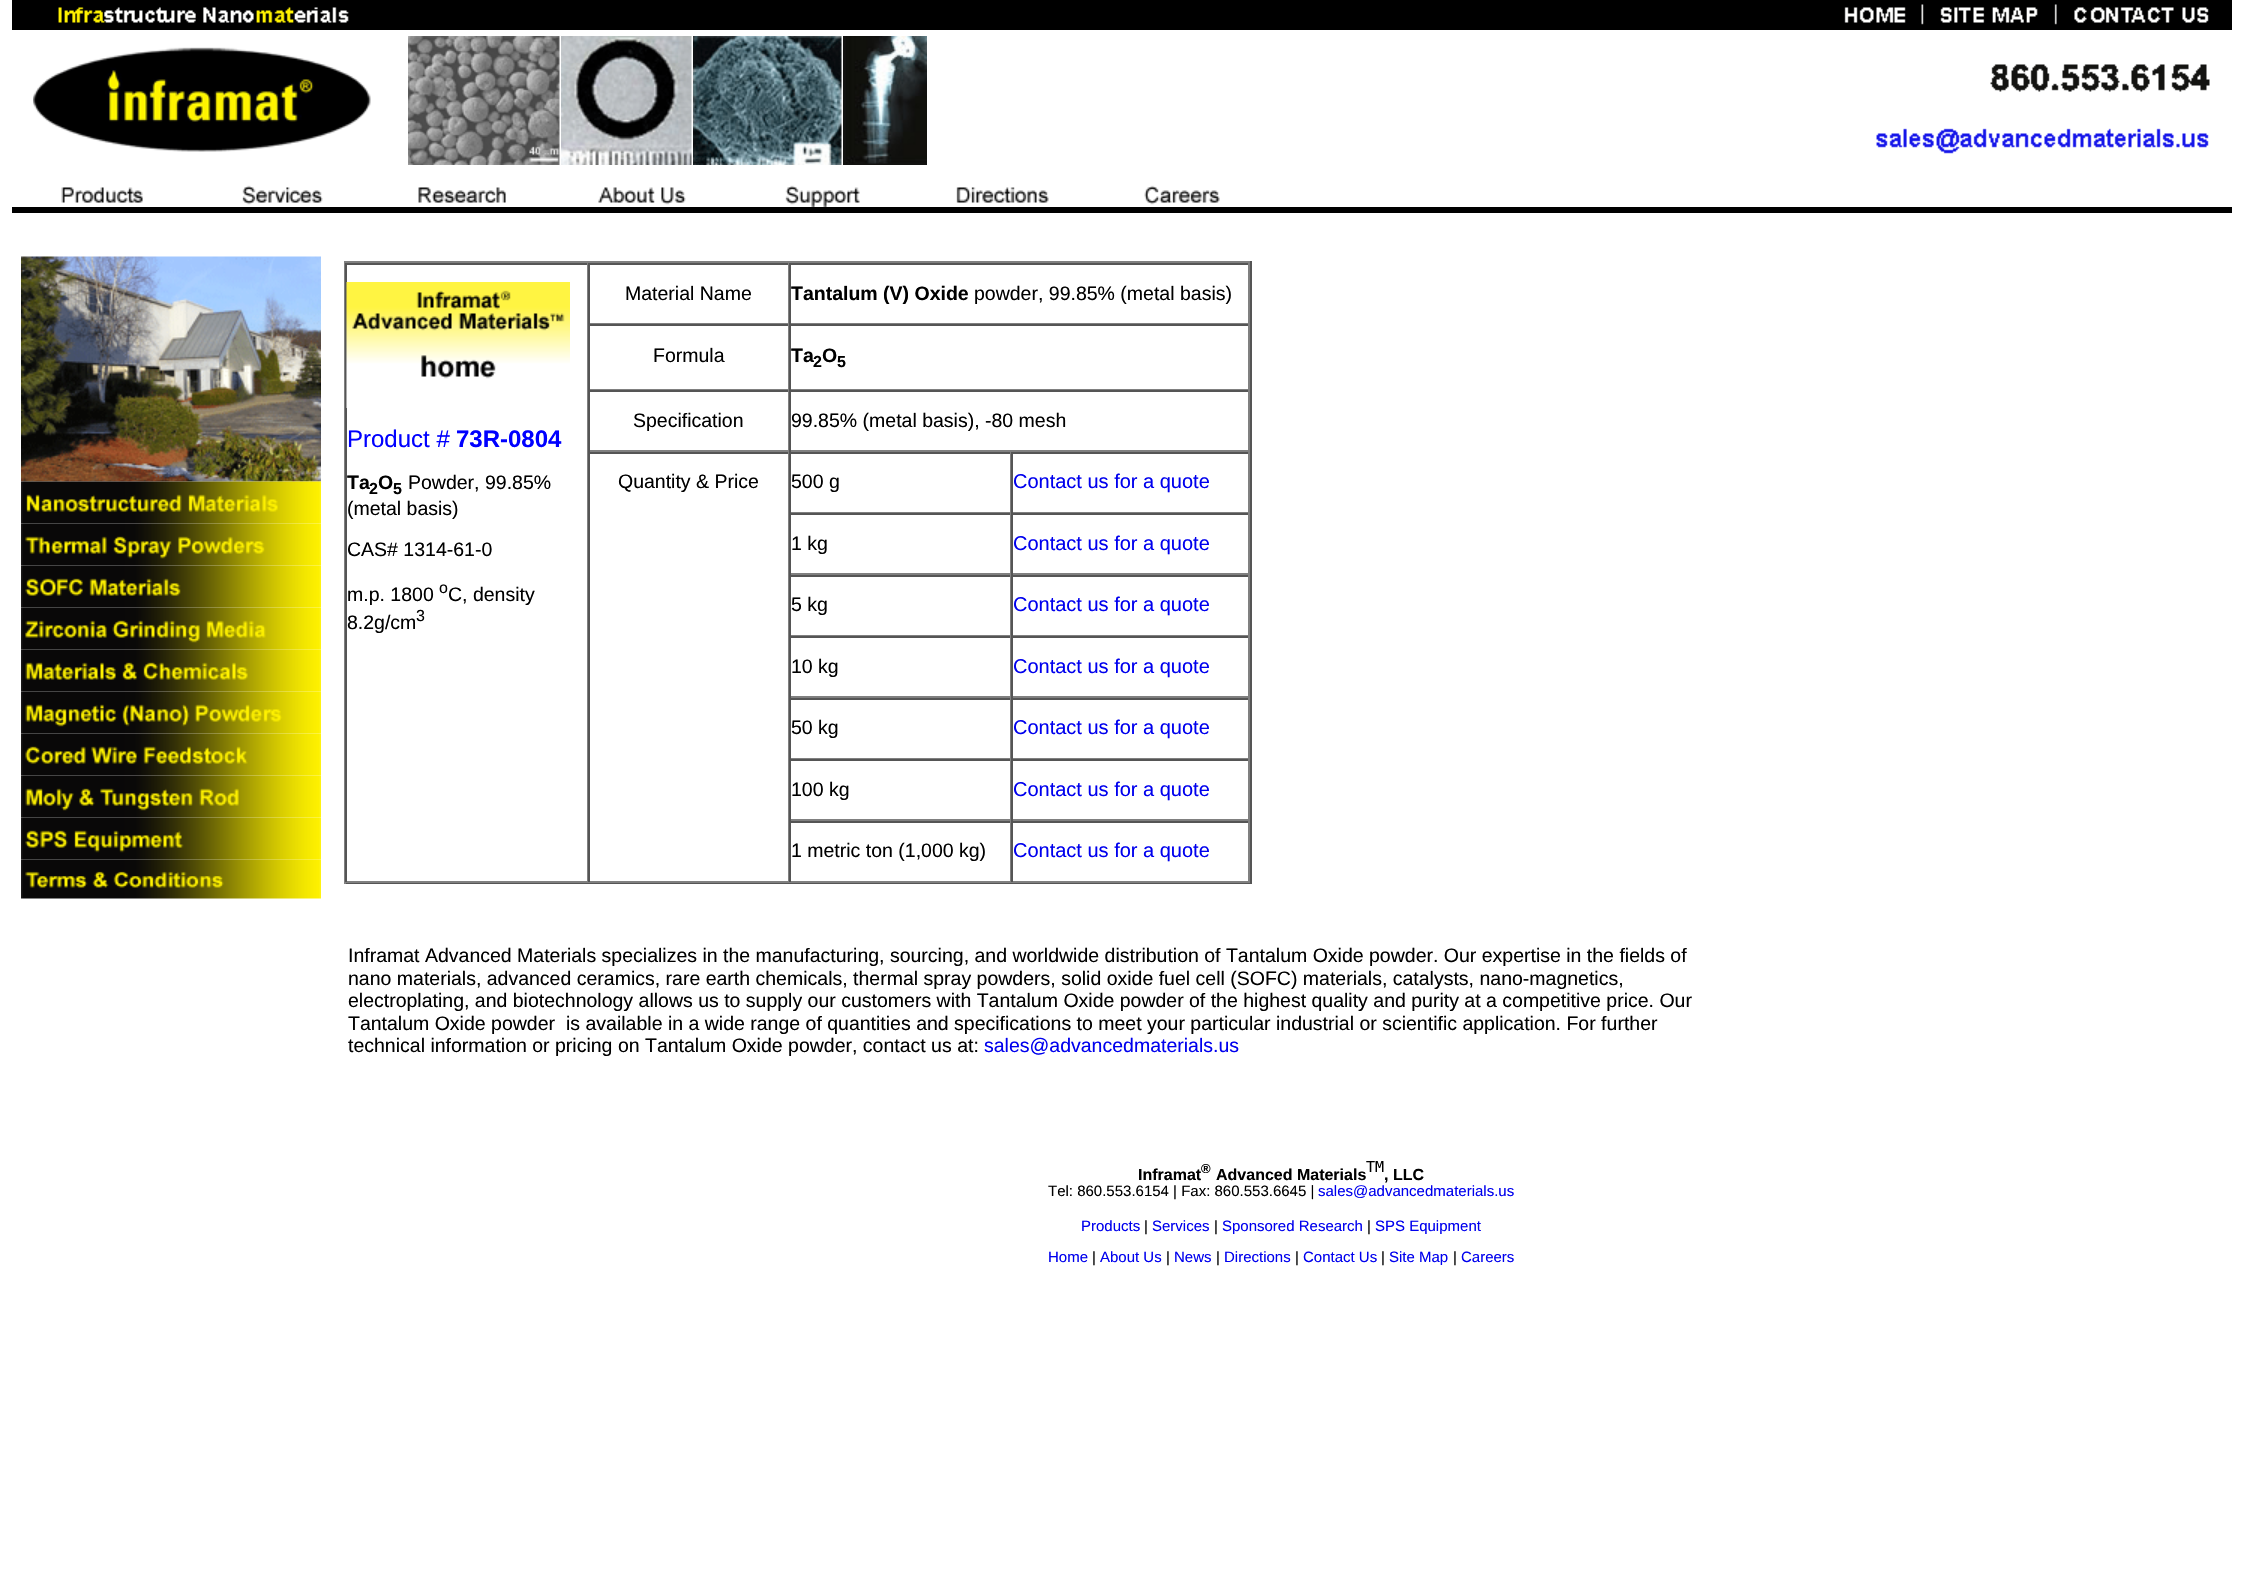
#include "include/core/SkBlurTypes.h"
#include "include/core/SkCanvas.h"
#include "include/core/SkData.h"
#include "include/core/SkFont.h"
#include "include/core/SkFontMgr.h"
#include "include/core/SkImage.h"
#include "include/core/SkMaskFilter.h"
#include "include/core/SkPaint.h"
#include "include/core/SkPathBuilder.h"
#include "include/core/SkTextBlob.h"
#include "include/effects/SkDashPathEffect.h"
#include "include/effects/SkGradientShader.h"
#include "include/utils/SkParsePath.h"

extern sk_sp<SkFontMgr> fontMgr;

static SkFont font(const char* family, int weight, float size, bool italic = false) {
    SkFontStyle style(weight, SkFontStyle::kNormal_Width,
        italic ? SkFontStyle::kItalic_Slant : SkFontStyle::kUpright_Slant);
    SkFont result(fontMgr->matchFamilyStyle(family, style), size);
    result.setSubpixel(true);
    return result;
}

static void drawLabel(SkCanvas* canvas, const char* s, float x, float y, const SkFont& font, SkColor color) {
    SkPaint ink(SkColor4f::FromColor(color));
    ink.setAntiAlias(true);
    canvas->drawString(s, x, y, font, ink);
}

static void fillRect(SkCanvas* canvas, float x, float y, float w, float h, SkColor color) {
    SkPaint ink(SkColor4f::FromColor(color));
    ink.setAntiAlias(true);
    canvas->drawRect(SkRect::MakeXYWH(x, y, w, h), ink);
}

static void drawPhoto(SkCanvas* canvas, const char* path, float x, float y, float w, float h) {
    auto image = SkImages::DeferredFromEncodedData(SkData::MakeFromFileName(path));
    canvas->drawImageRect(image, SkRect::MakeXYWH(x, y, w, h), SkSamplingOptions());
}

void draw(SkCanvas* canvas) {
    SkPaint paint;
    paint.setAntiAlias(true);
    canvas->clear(0xFFFFFFFF);
    fillRect(canvas, 12, 0, 2220, 30, 0xFF000000);
    drawPhoto(canvas, "assets/img1.png", 58, 7, 291, 16);
    drawPhoto(canvas, "assets/img2.png", 1844, 7, 62, 16);
    drawPhoto(canvas, "assets/img3.png", 1921, 4, 3, 21);
    drawPhoto(canvas, "assets/img4.png", 1940, 7, 98, 16);
    drawPhoto(canvas, "assets/img5.png", 2054, 4, 3, 21);
    drawPhoto(canvas, "assets/img6.png", 2074, 7, 135, 16);
    drawPhoto(canvas, "assets/img7.png", 33, 47, 338, 105);
    drawPhoto(canvas, "assets/img8.png", 408, 36, 152, 129);
    drawPhoto(canvas, "assets/img9.png", 561, 36, 131, 129);
    drawPhoto(canvas, "assets/img10.png", 693, 36, 149, 129);
    drawPhoto(canvas, "assets/img11.png", 843, 36, 84, 129);
    drawPhoto(canvas, "assets/img12.png", 1990, 64, 220, 28);
    drawPhoto(canvas, "assets/img13.png", 1876, 128, 333, 26);
    drawPhoto(canvas, "assets/img14.png", 61, 187, 82, 16);
    drawPhoto(canvas, "assets/img15.png", 242, 185, 81, 20);
    drawPhoto(canvas, "assets/img16.png", 418, 187, 88, 16);
    drawPhoto(canvas, "assets/img17.png", 598, 187, 88, 18);
    drawPhoto(canvas, "assets/img18.png", 785, 185, 75, 22);
    drawPhoto(canvas, "assets/img19.png", 956, 187, 93, 16);
    drawPhoto(canvas, "assets/img20.png", 1144, 185, 76, 20);
    fillRect(canvas, 12, 207, 2220, 6, 0xFF000000);
    drawPhoto(canvas, "assets/img21.png", 21, 256, 300, 226);
    drawPhoto(canvas, "assets/img22.png", 21, 481, 300, 43);
    drawPhoto(canvas, "assets/img23.png", 21, 523, 300, 43);
    drawPhoto(canvas, "assets/img24.png", 21, 565, 300, 43);
    drawPhoto(canvas, "assets/img25.png", 21, 607, 300, 43);
    drawPhoto(canvas, "assets/img26.png", 21, 649, 300, 43);
    drawPhoto(canvas, "assets/img27.png", 21, 691, 300, 43);
    drawPhoto(canvas, "assets/img28.png", 21, 733, 300, 43);
    drawPhoto(canvas, "assets/img29.png", 21, 775, 300, 43);
    drawPhoto(canvas, "assets/img30.png", 21, 817, 300, 43);
    drawPhoto(canvas, "assets/img31.png", 21, 859, 300, 40);
    fillRect(canvas, 344, 261, 907, 2, 0xFF808080);
    fillRect(canvas, 1250, 261, 2, 623, 0xFF555555);
    fillRect(canvas, 344, 882, 907, 2, 0xFF555555);
    fillRect(canvas, 344, 261, 2, 623, 0xFF808080);
    fillRect(canvas, 345, 263, 905, 2, 0xFF555555);
    fillRect(canvas, 788, 263, 1, 61, 0xFF808080);
    fillRect(canvas, 588, 323, 201, 1, 0xFF808080);
    fillRect(canvas, 588, 263, 2, 61, 0xFF555555);
    SkFont font1 = font("Liberation Sans", 400, 19.5f);
    drawLabel(canvas, "Material Name", 625, 300, font1, 0xFF000000);
    fillRect(canvas, 1248, 263, 2, 61, 0xFF808080);
    fillRect(canvas, 789, 323, 461, 1, 0xFF808080);
    fillRect(canvas, 789, 263, 2, 61, 0xFF555555);
    SkFont font2 = font("Liberation Sans", 700, 19.5f);
    drawLabel(canvas, "Tantalum (V) Oxide", 791, 300, font2, 0xFF000000);
    drawLabel(canvas, "powder, 99.85% (metal basis)", 974, 300, font1, 0xFF000000);
    fillRect(canvas, 587, 263, 1, 619, 0xFF808080);
    fillRect(canvas, 345, 881, 243, 2, 0xFF808080);
    fillRect(canvas, 345, 263, 2, 619, 0xFF555555);
    drawPhoto(canvas, "assets/img32.png", 346, 282, 224, 126);
    SkFont font3 = font("Liberation Sans", 400, 24);
    drawLabel(canvas, "Product #", 347, 447, font3, 0xFF0000FF);
    SkFont font4 = font("Liberation Sans", 700, 24);
    drawLabel(canvas, "73R-0804", 456, 447, font4, 0xFF0000FF);
    drawLabel(canvas, "Ta", 347, 489, font2, 0xFF000000);
    SkFont font5 = font("Liberation Sans", 700, 16);
    drawLabel(canvas, "2", 369, 494, font5, 0xFF000000);
    drawLabel(canvas, "O", 378, 489, font2, 0xFF000000);
    drawLabel(canvas, "5", 393, 494, font5, 0xFF000000);
    drawLabel(canvas, "Powder, 99.85%", 408, 489, font1, 0xFF000000);
    drawLabel(canvas, "(metal basis)", 347, 515, font1, 0xFF000000);
    drawLabel(canvas, "CAS# 1314-61-0", 347, 556, font1, 0xFF000000);
    drawLabel(canvas, "m.p. 1800", 347, 601, font1, 0xFF000000);
    SkFont font6 = font("Liberation Sans", 400, 16);
    drawLabel(canvas, "o", 439, 593, font6, 0xFF000000);
    drawLabel(canvas, "C, density", 448, 601, font1, 0xFF000000);
    drawLabel(canvas, "8.2g/cm", 347, 629, font1, 0xFF000000);
    drawLabel(canvas, "3", 416, 621, font6, 0xFF000000);
    fillRect(canvas, 588, 324, 662, 2, 0xFF555555);
    fillRect(canvas, 788, 324, 1, 66, 0xFF808080);
    fillRect(canvas, 588, 389, 201, 1, 0xFF808080);
    fillRect(canvas, 588, 324, 2, 66, 0xFF555555);
    drawLabel(canvas, "Formula", 653, 362, font1, 0xFF000000);
    fillRect(canvas, 1248, 324, 2, 66, 0xFF808080);
    fillRect(canvas, 789, 389, 461, 1, 0xFF808080);
    fillRect(canvas, 789, 324, 2, 66, 0xFF555555);
    drawLabel(canvas, "Ta", 791, 362, font2, 0xFF000000);
    drawLabel(canvas, "2", 813, 367, font5, 0xFF000000);
    drawLabel(canvas, "O", 822, 362, font2, 0xFF000000);
    drawLabel(canvas, "5", 837, 367, font5, 0xFF000000);
    fillRect(canvas, 588, 390, 662, 2, 0xFF555555);
    fillRect(canvas, 788, 390, 1, 62, 0xFF808080);
    fillRect(canvas, 588, 450, 201, 2, 0xFF808080);
    fillRect(canvas, 588, 390, 2, 62, 0xFF555555);
    drawLabel(canvas, "Specification", 633, 427, font1, 0xFF000000);
    fillRect(canvas, 1248, 390, 2, 62, 0xFF808080);
    fillRect(canvas, 789, 450, 461, 2, 0xFF808080);
    fillRect(canvas, 789, 390, 2, 62, 0xFF555555);
    drawLabel(canvas, "99.85% (metal basis), -80 mesh", 791, 427, font1, 0xFF000000);
    fillRect(canvas, 588, 452, 662, 2, 0xFF555555);
    fillRect(canvas, 788, 452, 1, 430, 0xFF808080);
    fillRect(canvas, 588, 881, 201, 2, 0xFF808080);
    fillRect(canvas, 588, 452, 2, 430, 0xFF555555);
    drawLabel(canvas, "Quantity & Price", 618, 488, font1, 0xFF000000);
    fillRect(canvas, 1010, 452, 1, 61, 0xFF808080);
    fillRect(canvas, 789, 512, 222, 1, 0xFF808080);
    fillRect(canvas, 789, 452, 2, 61, 0xFF555555);
    drawLabel(canvas, "500 g", 791, 488, font1, 0xFF000000);
    fillRect(canvas, 1248, 452, 2, 61, 0xFF808080);
    fillRect(canvas, 1011, 512, 239, 1, 0xFF808080);
    fillRect(canvas, 1011, 452, 2, 61, 0xFF555555);
    SkFont font7 = font("Liberation Sans", 400, 20);
    drawLabel(canvas, "Contact us for a quote", 1013, 488, font7, 0xFF0000EE);
    fillRect(canvas, 789, 513, 461, 2, 0xFF555555);
    fillRect(canvas, 1010, 513, 1, 62, 0xFF808080);
    fillRect(canvas, 789, 573, 222, 2, 0xFF808080);
    fillRect(canvas, 789, 513, 2, 62, 0xFF555555);
    drawLabel(canvas, "1 kg", 791, 550, font1, 0xFF000000);
    fillRect(canvas, 1248, 513, 2, 62, 0xFF808080);
    fillRect(canvas, 1011, 573, 239, 2, 0xFF808080);
    fillRect(canvas, 1011, 513, 2, 62, 0xFF555555);
    drawLabel(canvas, "Contact us for a quote", 1013, 550, font7, 0xFF0000EE);
    fillRect(canvas, 789, 575, 461, 2, 0xFF555555);
    fillRect(canvas, 1010, 575, 1, 61, 0xFF808080);
    fillRect(canvas, 789, 635, 222, 1, 0xFF808080);
    fillRect(canvas, 789, 575, 2, 61, 0xFF555555);
    drawLabel(canvas, "5 kg", 791, 611, font1, 0xFF000000);
    fillRect(canvas, 1248, 575, 2, 61, 0xFF808080);
    fillRect(canvas, 1011, 635, 239, 1, 0xFF808080);
    fillRect(canvas, 1011, 575, 2, 61, 0xFF555555);
    drawLabel(canvas, "Contact us for a quote", 1013, 611, font7, 0xFF0000EE);
    fillRect(canvas, 789, 636, 461, 2, 0xFF555555);
    fillRect(canvas, 1010, 636, 1, 62, 0xFF808080);
    fillRect(canvas, 789, 696, 222, 2, 0xFF808080);
    fillRect(canvas, 789, 636, 2, 62, 0xFF555555);
    drawLabel(canvas, "10 kg", 791, 673, font1, 0xFF000000);
    fillRect(canvas, 1248, 636, 2, 62, 0xFF808080);
    fillRect(canvas, 1011, 696, 239, 2, 0xFF808080);
    fillRect(canvas, 1011, 636, 2, 62, 0xFF555555);
    drawLabel(canvas, "Contact us for a quote", 1013, 673, font7, 0xFF0000EE);
    fillRect(canvas, 789, 698, 461, 2, 0xFF555555);
    fillRect(canvas, 1010, 698, 1, 61, 0xFF808080);
    fillRect(canvas, 789, 758, 222, 1, 0xFF808080);
    fillRect(canvas, 789, 698, 2, 61, 0xFF555555);
    drawLabel(canvas, "50 kg", 791, 734, font1, 0xFF000000);
    fillRect(canvas, 1248, 698, 2, 61, 0xFF808080);
    fillRect(canvas, 1011, 758, 239, 1, 0xFF808080);
    fillRect(canvas, 1011, 698, 2, 61, 0xFF555555);
    drawLabel(canvas, "Contact us for a quote", 1013, 734, font7, 0xFF0000EE);
    fillRect(canvas, 789, 759, 461, 2, 0xFF555555);
    fillRect(canvas, 1010, 759, 1, 62, 0xFF808080);
    fillRect(canvas, 789, 819, 222, 2, 0xFF808080);
    fillRect(canvas, 789, 759, 2, 62, 0xFF555555);
    drawLabel(canvas, "100 kg", 791, 796, font1, 0xFF000000);
    fillRect(canvas, 1248, 759, 2, 62, 0xFF808080);
    fillRect(canvas, 1011, 819, 239, 2, 0xFF808080);
    fillRect(canvas, 1011, 759, 2, 62, 0xFF555555);
    drawLabel(canvas, "Contact us for a quote", 1013, 796, font7, 0xFF0000EE);
    fillRect(canvas, 789, 821, 461, 2, 0xFF555555);
    fillRect(canvas, 1010, 821, 1, 61, 0xFF808080);
    fillRect(canvas, 789, 881, 222, 2, 0xFF808080);
    fillRect(canvas, 789, 821, 2, 61, 0xFF555555);
    drawLabel(canvas, "1 metric ton (1,000 kg)", 791, 857, font1, 0xFF000000);
    fillRect(canvas, 1248, 821, 2, 61, 0xFF808080);
    fillRect(canvas, 1011, 881, 239, 2, 0xFF808080);
    fillRect(canvas, 1011, 821, 2, 61, 0xFF555555);
    drawLabel(canvas, "Contact us for a quote", 1013, 857, font7, 0xFF0000EE);
    drawLabel(canvas, "Inframat Advanced Materials specializes in the manufacturing, sourcing, and worldwide distribution of Tantalum Oxide powder. Our expertise in the fields of", 348, 962, font1, 0xFF000000);
    drawLabel(canvas, "nano materials, advanced ceramics, rare earth chemicals, thermal spray powders, solid oxide fuel cell (SOFC) materials, catalysts, nano-magnetics,", 348, 985, font1, 0xFF000000);
    drawLabel(canvas, "electroplating, and biotechnology allows us to supply our customers with Tantalum Oxide powder", 348, 1007, font1, 0xFF000000);
    drawLabel(canvas, "of the highest quality and purity at a competitive price. Our", 1189, 1007, font1, 0xFF000000);
    drawLabel(canvas, "Tantalum Oxide powder", 348, 1030, font1, 0xFF000000);
    drawLabel(canvas, "is available in a wide range of quantities and specifications to meet your particular industrial or scientific application. For further", 566, 1030, font1, 0xFF000000);
    drawLabel(canvas, "technical information or pricing on Tantalum Oxide powder, contact us at:", 348, 1052, font1, 0xFF000000);
    drawLabel(canvas, "sales@advancedmaterials.us", 984, 1052, font1, 0xFF0000EE);
    drawLabel(canvas, "Inframat", 1138, 1180, font5, 0xFF000000);
    SkFont font8 = font("Liberation Sans", 700, 13);
    drawLabel(canvas, "®", 1201, 1173, font8, 0xFF000000);
    drawLabel(canvas, "Advanced Materials", 1216, 1180, font5, 0xFF000000);
    SkFont font9 = font("DejaVu Sans Mono", 400, 15);
    drawLabel(canvas, "TM", 1366, 1172, font9, 0xFF000000);
    drawLabel(canvas, ", LLC", 1384, 1180, font5, 0xFF000000);
    SkFont font10 = font("Liberation Sans", 400, 15);
    drawLabel(canvas, "Tel: 860.553.6154 | Fax: 860.553.6645 |", 1048, 1196, font10, 0xFF000000);
    drawLabel(canvas, "sales@advancedmaterials.us", 1318, 1196, font10, 0xFF0000EE);
    drawLabel(canvas, "Products", 1081, 1231, font10, 0xFF0000EE);
    drawLabel(canvas, "|", 1144, 1231, font10, 0xFF000000);
    drawLabel(canvas, "Services", 1152, 1231, font10, 0xFF0000EE);
    drawLabel(canvas, "|", 1214, 1231, font10, 0xFF000000);
    drawLabel(canvas, "Sponsored Research", 1222, 1231, font10, 0xFF0000EE);
    drawLabel(canvas, "|", 1367, 1231, font10, 0xFF000000);
    drawLabel(canvas, "SPS Equipment", 1375, 1231, font10, 0xFF0000EE);
    drawLabel(canvas, "Home", 1048, 1262, font10, 0xFF0000EE);
    drawLabel(canvas, "|", 1092, 1262, font10, 0xFF000000);
    drawLabel(canvas, "About Us", 1100, 1262, font10, 0xFF0000EE);
    drawLabel(canvas, "|", 1166, 1262, font10, 0xFF000000);
    drawLabel(canvas, "News", 1174, 1262, font10, 0xFF0000EE);
    drawLabel(canvas, "|", 1216, 1262, font10, 0xFF000000);
    drawLabel(canvas, "Directions", 1224, 1262, font10, 0xFF0000EE);
    drawLabel(canvas, "|", 1295, 1262, font10, 0xFF000000);
    drawLabel(canvas, "Contact Us", 1303, 1262, font10, 0xFF0000EE);
    drawLabel(canvas, "|", 1381, 1262, font10, 0xFF000000);
    drawLabel(canvas, "Site Map", 1389, 1262, font10, 0xFF0000EE);
    drawLabel(canvas, "|", 1453, 1262, font10, 0xFF000000);
    drawLabel(canvas, "Careers", 1461, 1262, font10, 0xFF0000EE);
}
